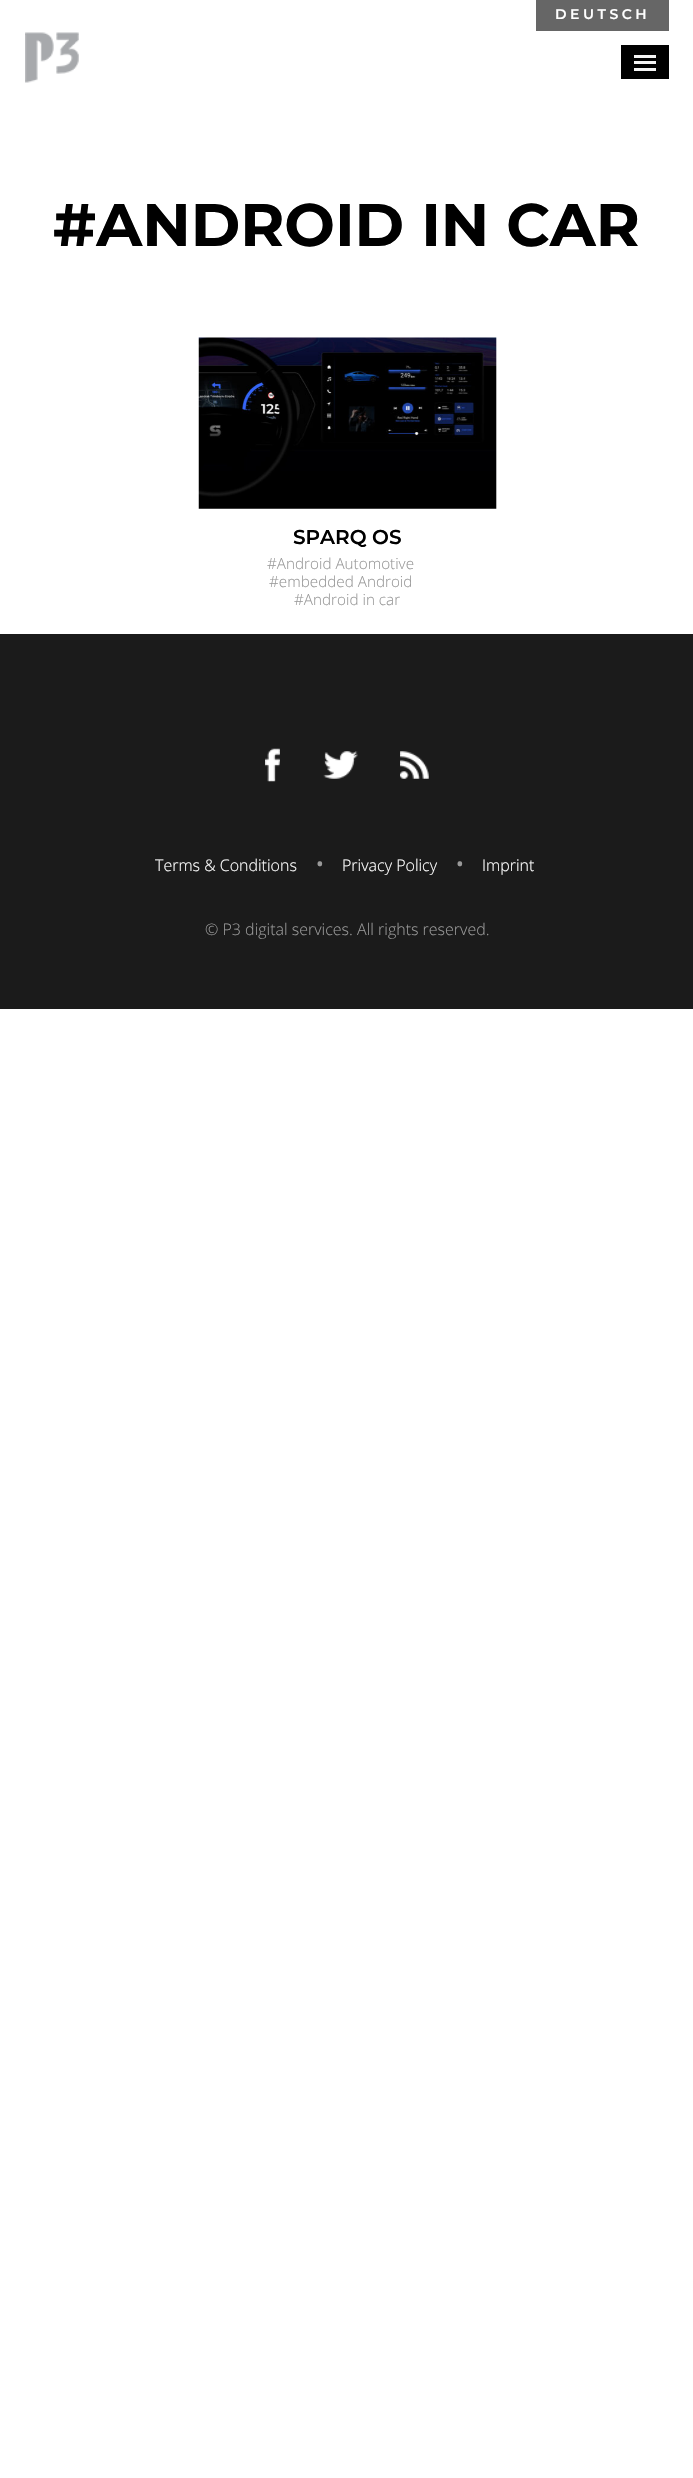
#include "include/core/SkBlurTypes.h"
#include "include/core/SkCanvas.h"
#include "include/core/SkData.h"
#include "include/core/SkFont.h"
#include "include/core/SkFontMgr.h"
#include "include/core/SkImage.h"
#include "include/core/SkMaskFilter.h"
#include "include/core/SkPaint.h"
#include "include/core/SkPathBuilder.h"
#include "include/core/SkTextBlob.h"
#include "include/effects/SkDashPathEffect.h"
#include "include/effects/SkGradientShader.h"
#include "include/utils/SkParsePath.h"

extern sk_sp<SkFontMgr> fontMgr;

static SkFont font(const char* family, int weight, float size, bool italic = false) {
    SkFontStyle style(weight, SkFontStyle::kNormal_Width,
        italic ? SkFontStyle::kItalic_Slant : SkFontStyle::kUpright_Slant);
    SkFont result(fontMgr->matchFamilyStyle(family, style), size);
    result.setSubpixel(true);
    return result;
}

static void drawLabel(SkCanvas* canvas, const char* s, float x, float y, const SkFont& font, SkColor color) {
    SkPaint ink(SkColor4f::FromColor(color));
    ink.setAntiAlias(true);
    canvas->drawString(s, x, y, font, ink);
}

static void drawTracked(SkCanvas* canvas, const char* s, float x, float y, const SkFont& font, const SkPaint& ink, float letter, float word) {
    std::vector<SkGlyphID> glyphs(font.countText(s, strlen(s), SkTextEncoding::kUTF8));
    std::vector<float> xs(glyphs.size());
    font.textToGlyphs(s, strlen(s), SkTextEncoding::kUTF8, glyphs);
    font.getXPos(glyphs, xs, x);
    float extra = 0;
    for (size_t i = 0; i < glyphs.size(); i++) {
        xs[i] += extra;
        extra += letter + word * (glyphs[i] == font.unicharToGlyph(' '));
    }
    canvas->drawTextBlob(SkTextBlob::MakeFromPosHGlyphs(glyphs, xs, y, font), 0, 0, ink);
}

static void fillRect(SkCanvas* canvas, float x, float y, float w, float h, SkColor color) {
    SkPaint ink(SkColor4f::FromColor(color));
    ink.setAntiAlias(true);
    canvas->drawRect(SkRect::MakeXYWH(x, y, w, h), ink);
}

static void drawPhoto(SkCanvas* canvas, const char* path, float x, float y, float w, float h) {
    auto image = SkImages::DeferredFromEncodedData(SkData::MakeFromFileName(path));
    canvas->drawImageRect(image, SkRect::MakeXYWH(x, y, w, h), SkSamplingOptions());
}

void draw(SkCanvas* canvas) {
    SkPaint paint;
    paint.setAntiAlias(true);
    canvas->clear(0xFFFFFFFF);
    fillRect(canvas, 536, 0, 133, 31, 0xFF666666);
    SkFont font1 = font("Montserrat", 600, 14);
    paint.setColor(0xFFFFFFFF);
    drawTracked(canvas, "DEUTSCH", 555, 19, font1, paint, 3.5f, 0);
    drawPhoto(canvas, "assets/img1.png", 25, 32, 54, 51);
    fillRect(canvas, 621, 45, 48, 34, 0xFF000000);
    fillRect(canvas, 634, 55, 22, 3, 0xFFF5F5F5);
    fillRect(canvas, 634, 61, 22, 3, 0xFFF5F5F5);
    fillRect(canvas, 634, 68, 22, 3, 0xFFF5F5F5);
    SkFont font2 = font("Montserrat", 700, 60);
    drawLabel(canvas, "#ANDROID IN CAR", 53, 246, font2, 0xFF000000);
    drawPhoto(canvas, "assets/img2.png", 198, 337, 299, 172);
    SkFont font3 = font("Montserrat", 600, 20);
    drawLabel(canvas, "SPARQ OS", 293, 544, font3, 0xFF000000);
    SkFont font4 = font("Open Sans", 300, 15.25f);
    drawLabel(canvas, "#Android Automotive", 267, 569, font4, 0xFF999999);
    drawLabel(canvas, "#embedded Android", 269, 587, font4, 0xFF999999);
    drawLabel(canvas, "#Android in car", 294, 605, font4, 0xFF999999);
    fillRect(canvas, 0, 634, 693, 375, 0xFF1B1B1B);
    drawPhoto(canvas, "assets/img3.png", 265, 748, 15, 34);
    drawPhoto(canvas, "assets/img4.png", 323, 751, 35, 28);
    drawPhoto(canvas, "assets/img5.png", 400, 751, 29, 28);
    SkFont font5 = font("Open Sans", 300, 16);
    drawLabel(canvas, "Terms & Conditions", 155, 871, font5, 0xFFFFFFFF);
    SkFont font6 = font("Open Sans", 700, 19);
    drawLabel(canvas, "•", 316, 871, font6, 0xFF999999);
    drawLabel(canvas, "Privacy Policy", 342, 871, font5, 0xFFFFFFFF);
    drawLabel(canvas, "•", 456, 871, font6, 0xFF999999);
    drawLabel(canvas, "Imprint", 482, 871, font5, 0xFFFFFFFF);
    drawLabel(canvas, "© P3 digital services. All rights reserved.", 205, 935, font5, 0xFF999999);
}
